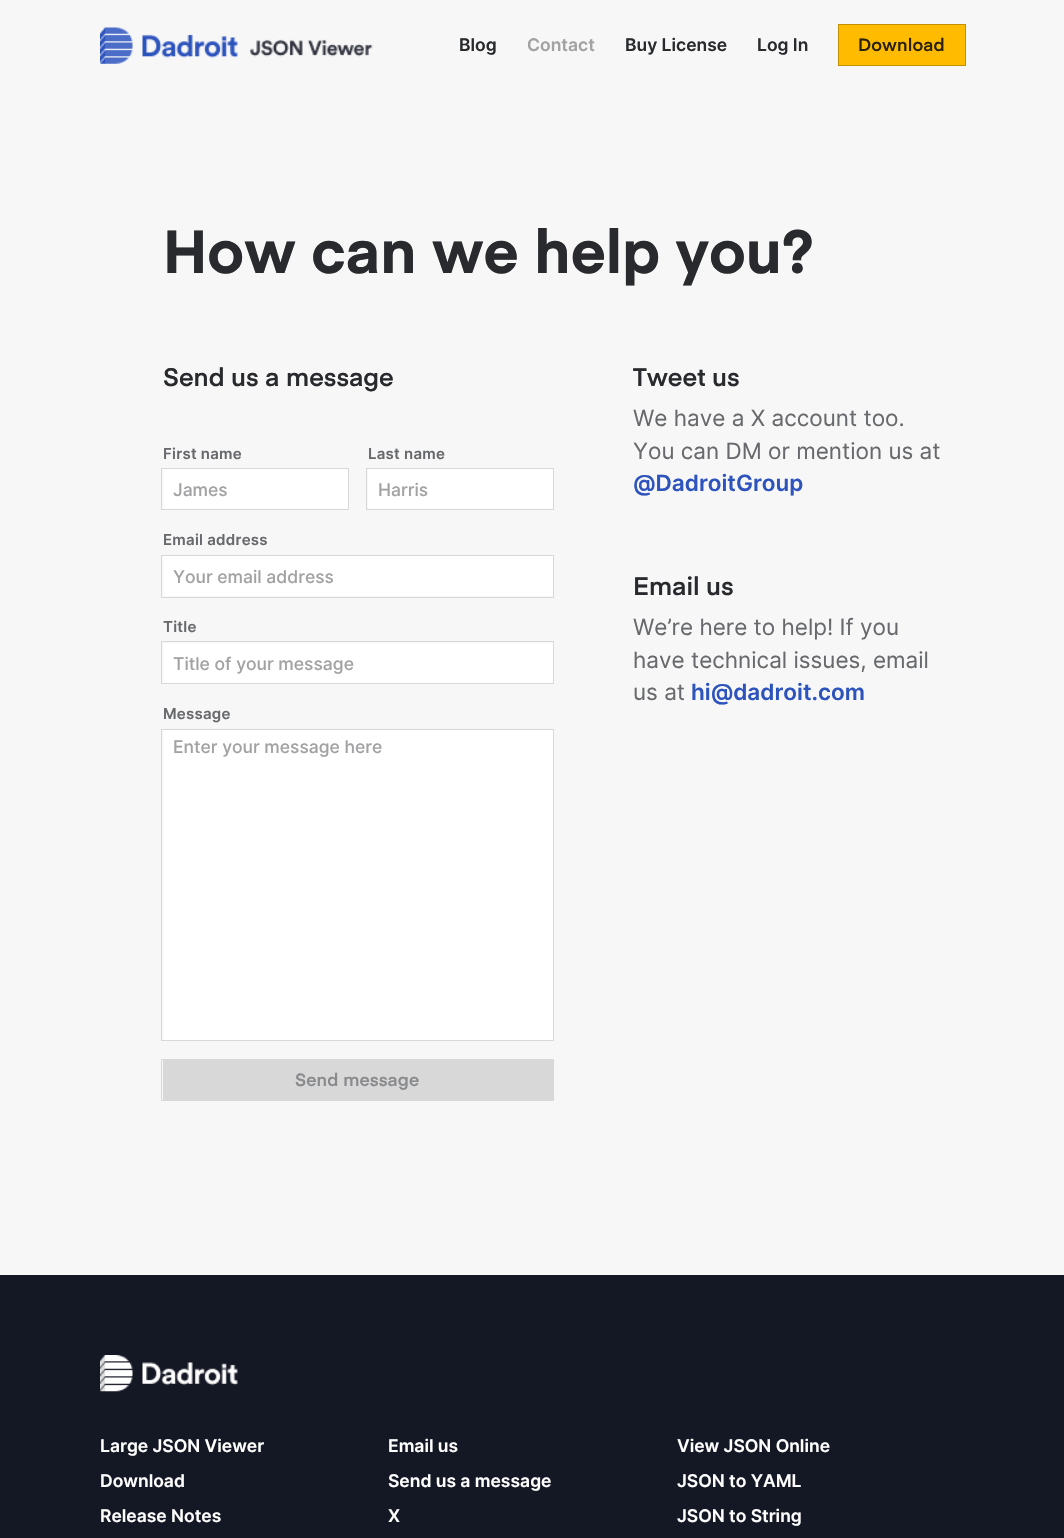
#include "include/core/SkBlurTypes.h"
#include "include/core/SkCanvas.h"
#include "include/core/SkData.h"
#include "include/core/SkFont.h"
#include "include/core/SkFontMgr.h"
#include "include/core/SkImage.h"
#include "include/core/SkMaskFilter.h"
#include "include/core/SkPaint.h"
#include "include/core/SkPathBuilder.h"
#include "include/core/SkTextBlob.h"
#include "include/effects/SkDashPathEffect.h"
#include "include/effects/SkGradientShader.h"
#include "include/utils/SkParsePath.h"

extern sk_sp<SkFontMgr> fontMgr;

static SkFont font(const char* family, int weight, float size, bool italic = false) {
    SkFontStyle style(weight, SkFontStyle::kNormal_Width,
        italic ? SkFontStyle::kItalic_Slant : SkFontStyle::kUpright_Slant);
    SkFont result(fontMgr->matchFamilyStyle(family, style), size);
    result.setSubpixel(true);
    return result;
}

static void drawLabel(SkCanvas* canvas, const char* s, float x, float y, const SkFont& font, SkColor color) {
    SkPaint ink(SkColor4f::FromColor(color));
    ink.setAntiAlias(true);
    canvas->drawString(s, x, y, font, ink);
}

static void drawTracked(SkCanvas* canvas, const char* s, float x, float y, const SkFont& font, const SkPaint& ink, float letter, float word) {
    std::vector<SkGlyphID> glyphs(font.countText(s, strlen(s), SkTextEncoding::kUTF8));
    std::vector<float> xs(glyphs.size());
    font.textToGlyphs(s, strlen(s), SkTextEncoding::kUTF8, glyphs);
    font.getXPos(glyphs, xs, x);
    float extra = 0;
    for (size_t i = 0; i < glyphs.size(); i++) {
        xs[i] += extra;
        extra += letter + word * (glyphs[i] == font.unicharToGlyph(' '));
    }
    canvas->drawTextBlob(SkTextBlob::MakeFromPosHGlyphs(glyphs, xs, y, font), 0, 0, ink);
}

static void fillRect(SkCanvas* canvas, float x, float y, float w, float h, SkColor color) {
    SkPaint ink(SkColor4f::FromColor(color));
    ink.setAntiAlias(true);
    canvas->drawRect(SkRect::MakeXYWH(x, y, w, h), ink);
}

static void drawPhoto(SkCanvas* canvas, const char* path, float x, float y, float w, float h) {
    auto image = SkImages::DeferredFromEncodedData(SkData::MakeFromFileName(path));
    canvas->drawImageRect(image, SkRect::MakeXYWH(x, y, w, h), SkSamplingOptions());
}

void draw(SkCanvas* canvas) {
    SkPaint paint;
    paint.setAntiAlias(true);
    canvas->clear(0xFFF7F7F7);
    drawPhoto(canvas, "assets/img1.png", 100, 27, 273, 37);
    SkFont font1 = font("Inter", 600, 17.5f);
    drawLabel(canvas, "Blog", 459, 51, font1, 0xFF282A2D);
    drawLabel(canvas, "Contact", 527, 51, font1, 0xFFA2A2A4);
    drawLabel(canvas, "Buy License", 625, 51, font1, 0xFF282A2D);
    drawLabel(canvas, "Log In", 757, 51, font1, 0xFF282A2D);
    paint.setStroke(true);
    paint.setStrokeWidth(1);
    paint.setColor(0xFFC49104);
    canvas->drawRect(SkRect::MakeXYWH(838.5f, 24.5f, 127, 41), paint);
    fillRect(canvas, 839, 25, 126, 40, 0xFFFFBB00);
    SkFont font2 = font("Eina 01", 600, 17.5f);
    paint.setStroke(false);
    paint.setColor(0xFF29220D);
    drawTracked(canvas, "Download", 858, 51, font2, paint, 0.1f, 0);
    SkFont font3 = font("Eina 01", 700, 60);
    drawLabel(canvas, "How can we help you?", 163, 273, font3, 0xFF282A2D);
    SkFont font4 = font("Eina 01", 600, 25);
    drawLabel(canvas, "Send us a message", 163, 386, font4, 0xFF282A2D);
    SkFont font5 = font("Inter", 600, 15);
    paint.setColor(0xFF68696C);
    drawTracked(canvas, "First name", 163, 459, font5, paint, 0.25f, 0);
    paint.setStroke(true);
    paint.setColor(0xFFD8D8D9);
    canvas->drawRect(SkRect::MakeXYWH(161.5f, 468.5f, 187, 41), paint);
    fillRect(canvas, 163, 469, 185, 40, 0xFFFFFFFF);
    SkFont font6 = font("Inter", 500, 17.5f);
    drawLabel(canvas, "James", 173, 496, font6, 0xFFA2A2A4);
    paint.setStroke(false);
    paint.setColor(0xFF68696C);
    drawTracked(canvas, "Last name", 368, 459, font5, paint, 0.25f, 0);
    paint.setStroke(true);
    paint.setColor(0xFFD8D8D9);
    canvas->drawRect(SkRect::MakeXYWH(366.5f, 468.5f, 187, 41), paint);
    fillRect(canvas, 368, 469, 185, 40, 0xFFFFFFFF);
    drawLabel(canvas, "Harris", 378, 496, font6, 0xFFA2A2A4);
    paint.setStroke(false);
    paint.setColor(0xFF68696C);
    drawTracked(canvas, "Email address", 163, 545, font5, paint, 0.25f, 0);
    paint.setStroke(true);
    paint.setColor(0xFFD8D8D9);
    canvas->drawRect(SkRect::MakeXYWH(161.5f, 555.5f, 392, 42), paint);
    fillRect(canvas, 163, 556, 390, 40, 0xFFFFFFFF);
    drawLabel(canvas, "Your email address", 173, 583, font6, 0xFFA2A2A4);
    paint.setStroke(false);
    paint.setColor(0xFF68696C);
    drawTracked(canvas, "Title", 163, 632, font5, paint, 0.25f, 0);
    paint.setStroke(true);
    paint.setColor(0xFFD8D8D9);
    canvas->drawRect(SkRect::MakeXYWH(161.5f, 641.5f, 392, 42), paint);
    fillRect(canvas, 163, 643, 390, 40, 0xFFFFFFFF);
    drawLabel(canvas, "Title of your message", 173, 670, font6, 0xFFA2A2A4);
    paint.setStroke(false);
    paint.setColor(0xFF68696C);
    drawTracked(canvas, "Message", 163, 719, font5, paint, 0.25f, 0);
    paint.setStroke(true);
    paint.setColor(0xFFD8D8D9);
    canvas->drawRect(SkRect::MakeXYWH(161.5f, 729.5f, 392, 311), paint);
    fillRect(canvas, 163, 730, 390, 310, 0xFFFFFFFF);
    drawLabel(canvas, "Enter your message here", 173, 753, font6, 0xFFA2A2A4);
    canvas->drawRect(SkRect::MakeXYWH(161.5f, 1059.5f, 392, 41), paint);
    fillRect(canvas, 163, 1060, 390, 40, 0xFFD8D8D9);
    paint.setStroke(false);
    paint.setColor(0xFF898A8C);
    drawTracked(canvas, "Send message", 295, 1086, font2, paint, 0.1f, 0);
    drawLabel(canvas, "Tweet us", 633, 386, font4, 0xFF282A2D);
    SkFont font7 = font("Inter", 400, 22.5f);
    drawLabel(canvas, "We have a X account too.", 633, 426, font7, 0xFF68696C);
    drawLabel(canvas, "You can DM or mention us at", 633, 459, font7, 0xFF68696C);
    SkFont font8 = font("Inter", 600, 22.5f);
    drawLabel(canvas, "@DadroitGroup", 633, 491, font8, 0xFF2D53BD);
    drawLabel(canvas, "Email us", 633, 595, font4, 0xFF282A2D);
    drawLabel(canvas, "We’re here to help! If you", 633, 635, font7, 0xFF68696C);
    drawLabel(canvas, "have technical issues, email", 633, 668, font7, 0xFF68696C);
    drawLabel(canvas, "us at", 633, 700, font7, 0xFF68696C);
    drawLabel(canvas, "hi@dadroit.com", 691, 700, font8, 0xFF2D53BD);
    fillRect(canvas, 0, 1275, 1064, 263, 0xFF141724);
    drawPhoto(canvas, "assets/img2.png", 100, 1355, 138, 37);
    drawLabel(canvas, "Large JSON Viewer", 100, 1452, font1, 0xFFFFFFFF);
    drawLabel(canvas, "Download", 100, 1487, font1, 0xFFFFFFFF);
    drawLabel(canvas, "Release Notes", 100, 1522, font1, 0xFFFFFFFF);
    drawLabel(canvas, "Email us", 388, 1452, font1, 0xFFFFFFFF);
    drawLabel(canvas, "Send us a message", 388, 1487, font1, 0xFFFFFFFF);
    drawLabel(canvas, "X", 388, 1522, font1, 0xFFFFFFFF);
    drawLabel(canvas, "View JSON Online", 677, 1452, font1, 0xFFFFFFFF);
    drawLabel(canvas, "JSON to YAML", 677, 1487, font1, 0xFFFFFFFF);
    drawLabel(canvas, "JSON to String", 677, 1522, font1, 0xFFFFFFFF);
}
